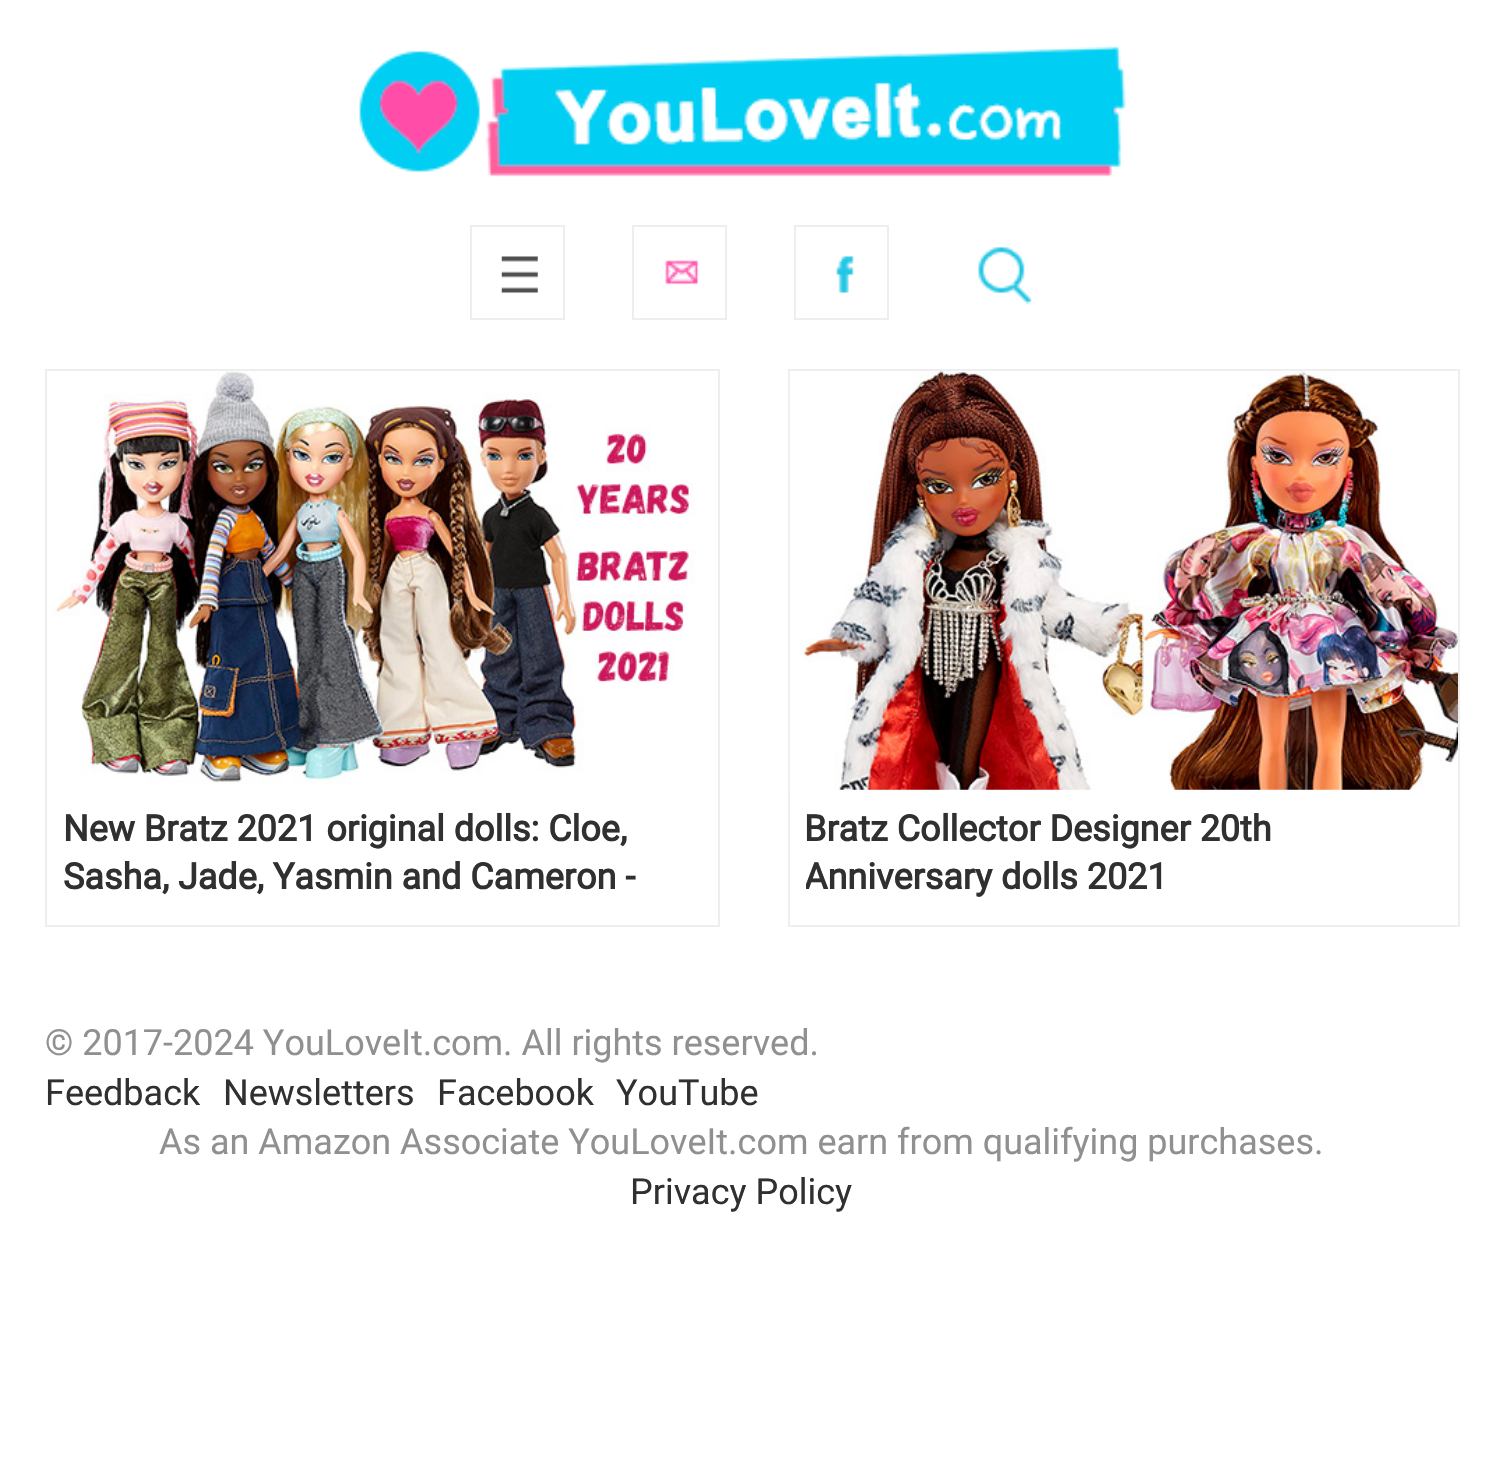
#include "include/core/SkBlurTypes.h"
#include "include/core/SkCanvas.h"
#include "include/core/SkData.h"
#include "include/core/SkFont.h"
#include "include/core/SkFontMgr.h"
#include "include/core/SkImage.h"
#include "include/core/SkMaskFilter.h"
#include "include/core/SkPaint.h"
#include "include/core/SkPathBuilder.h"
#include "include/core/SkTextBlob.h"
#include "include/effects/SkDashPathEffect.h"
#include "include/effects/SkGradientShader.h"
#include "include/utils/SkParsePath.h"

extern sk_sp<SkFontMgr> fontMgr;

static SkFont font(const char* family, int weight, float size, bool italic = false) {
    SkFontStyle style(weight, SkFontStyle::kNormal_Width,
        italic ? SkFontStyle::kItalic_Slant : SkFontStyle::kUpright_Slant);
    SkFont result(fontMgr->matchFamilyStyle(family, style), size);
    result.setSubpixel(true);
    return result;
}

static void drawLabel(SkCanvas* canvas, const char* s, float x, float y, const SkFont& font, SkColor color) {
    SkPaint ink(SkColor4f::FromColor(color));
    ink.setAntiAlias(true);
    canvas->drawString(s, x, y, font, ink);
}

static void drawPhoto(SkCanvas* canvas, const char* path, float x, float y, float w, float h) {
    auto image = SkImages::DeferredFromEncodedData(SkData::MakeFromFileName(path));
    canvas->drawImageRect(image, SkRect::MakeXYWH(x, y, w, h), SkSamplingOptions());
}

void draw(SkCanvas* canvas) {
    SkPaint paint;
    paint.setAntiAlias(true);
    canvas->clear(0xFFFFFFFF);
    drawPhoto(canvas, "assets/img1.png", 359, 46, 767, 131);
    paint.setStroke(true);
    paint.setStrokeWidth(2);
    paint.setColor(0xFFEEEEEE);
    canvas->drawRect(SkRect::MakeXYWH(471, 226, 93, 93), paint);
    drawPhoto(canvas, "assets/img2.png", 501, 256, 37, 37);
    canvas->drawRect(SkRect::MakeXYWH(633, 226, 93, 93), paint);
    drawPhoto(canvas, "assets/img3.png", 665, 260, 34, 25);
    canvas->drawRect(SkRect::MakeXYWH(795, 226, 93, 93), paint);
    drawPhoto(canvas, "assets/img4.png", 836, 256, 18, 37);
    drawPhoto(canvas, "assets/img5.png", 978, 247, 54, 58);
    canvas->drawRect(SkRect::MakeXYWH(46, 370, 673, 556), paint);
    drawPhoto(canvas, "assets/img6.png", 52, 371, 643, 413);
    SkFont font1 = font("Roboto", 700, 36);
    drawLabel(canvas, "New Bratz 2021 original dolls: Cloe,", 63, 841, font1, 0xFF303030);
    drawLabel(canvas, "Sasha, Jade, Yasmin and Cameron -", 63, 889, font1, 0xFF303030);
    canvas->drawRect(SkRect::MakeXYWH(789, 370, 670, 556), paint);
    drawPhoto(canvas, "assets/img7.png", 789, 371, 669, 419);
    drawLabel(canvas, "Bratz Collector Designer 20th", 804, 841, font1, 0xFF303030);
    canvas->save();
    canvas->clipRect(SkRect::MakeXYWH(806, 806, 636, 94));
    drawLabel(canvas, "Anniversary dolls 2021", 804, 889, font1, 0xFF303030);
    canvas->restore();
    SkFont font2 = font("Roboto", 400, 36);
    drawLabel(canvas, "© 2017-2024 YouLoveIt.com. All rights reserved.", 45, 1055, font2, 0xFF909090);
    drawLabel(canvas, "Feedback", 45, 1105, font2, 0xFF303030);
    drawLabel(canvas, "Newsletters", 223, 1105, font2, 0xFF303030);
    drawLabel(canvas, "Facebook", 437, 1105, font2, 0xFF303030);
    drawLabel(canvas, "YouTube", 616, 1105, font2, 0xFF303030);
    drawLabel(canvas, "As an Amazon Associate YouLoveIt.com earn from qualifying purchases.", 159, 1154, font2, 0xFF909090);
    drawLabel(canvas, "Privacy Policy", 630, 1204, font2, 0xFF303030);
}
